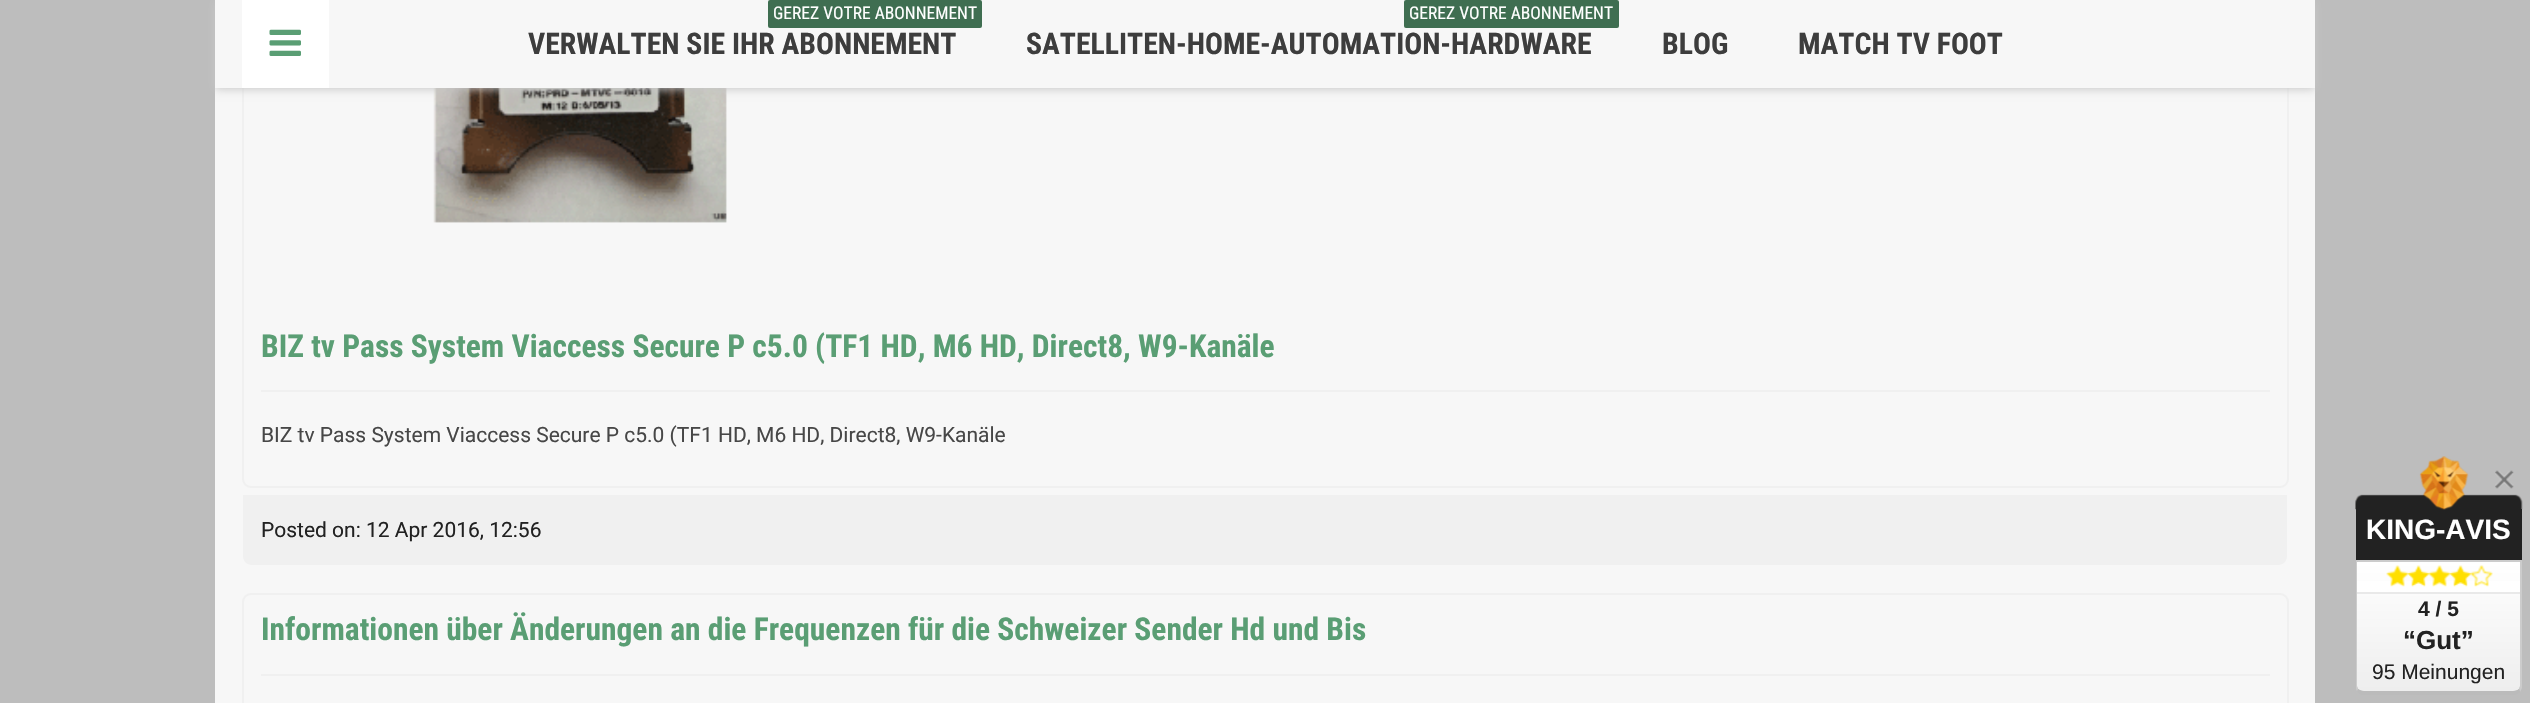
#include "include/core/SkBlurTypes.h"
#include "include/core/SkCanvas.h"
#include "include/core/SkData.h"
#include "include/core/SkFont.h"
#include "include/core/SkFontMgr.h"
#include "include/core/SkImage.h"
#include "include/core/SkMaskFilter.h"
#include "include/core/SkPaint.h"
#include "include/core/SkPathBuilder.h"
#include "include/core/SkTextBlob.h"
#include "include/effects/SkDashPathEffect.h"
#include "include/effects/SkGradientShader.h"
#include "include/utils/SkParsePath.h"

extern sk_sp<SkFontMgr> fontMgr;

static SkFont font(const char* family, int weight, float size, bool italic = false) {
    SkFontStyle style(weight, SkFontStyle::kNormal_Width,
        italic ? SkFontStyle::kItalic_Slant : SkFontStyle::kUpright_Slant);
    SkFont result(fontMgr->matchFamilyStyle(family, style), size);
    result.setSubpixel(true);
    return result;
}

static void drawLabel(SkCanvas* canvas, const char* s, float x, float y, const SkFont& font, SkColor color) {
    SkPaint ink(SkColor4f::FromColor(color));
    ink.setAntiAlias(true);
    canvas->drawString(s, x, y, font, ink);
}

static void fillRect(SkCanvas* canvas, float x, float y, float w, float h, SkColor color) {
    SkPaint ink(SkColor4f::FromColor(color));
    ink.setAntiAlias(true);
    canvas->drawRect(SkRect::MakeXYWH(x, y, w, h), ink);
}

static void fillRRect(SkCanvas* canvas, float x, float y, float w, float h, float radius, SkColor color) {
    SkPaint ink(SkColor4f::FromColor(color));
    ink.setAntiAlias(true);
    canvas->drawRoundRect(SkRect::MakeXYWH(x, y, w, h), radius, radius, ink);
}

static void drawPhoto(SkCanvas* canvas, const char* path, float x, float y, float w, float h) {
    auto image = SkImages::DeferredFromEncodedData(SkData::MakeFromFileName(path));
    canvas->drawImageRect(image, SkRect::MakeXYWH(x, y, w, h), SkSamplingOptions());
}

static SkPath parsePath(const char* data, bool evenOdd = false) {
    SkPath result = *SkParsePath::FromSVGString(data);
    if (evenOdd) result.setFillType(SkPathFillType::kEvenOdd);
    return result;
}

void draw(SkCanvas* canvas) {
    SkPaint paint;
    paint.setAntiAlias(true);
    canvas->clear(0xFFBDBDBD);
    fillRect(canvas, 215, 88, 2100, 615, 0xFFF7F7F7);
    paint.setStroke(true);
    paint.setStrokeWidth(2);
    paint.setColor(0xFFF0F0F0);
    canvas->drawRoundRect(SkRect::MakeXYWH(243, -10, 2045, 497), 8, 8, paint);
    drawPhoto(canvas, "assets/img2.png", 433, 88, 294, 135);
    paint.setStroke(false);
    paint.setColor(0xFFC7C7C7);
    paint.setMaskFilter(SkMaskFilter::MakeBlur(kNormal_SkBlurStyle, 4.5f));
    canvas->drawRect(SkRect::MakeXYWH(215, 2, 2100, 87), paint);
    paint.setMaskFilter(nullptr);
    fillRect(canvas, 215, 0, 2100, 88, 0xFFF7F7F7);
    fillRect(canvas, 242, 0, 87, 88, 0xFFFFFFFF);
    drawPhoto(canvas, "assets/img1.png", 269, 29, 32, 27);
    fillRRect(canvas, 768, 0, 214, 28, 2, 0xFF3F6E51);
    SkFont font1 = font("Roboto Condensed", 400, 17.5f);
    drawLabel(canvas, "GEREZ VOTRE ABONNEMENT", 773, 19, font1, 0xFFFFFFFF);
    SkFont font2 = font("Roboto Condensed", 700, 29.75f);
    drawLabel(canvas, "VERWALTEN SIE IHR ABONNEMENT", 528, 54, font2, 0xFF3D3D3D);
    fillRRect(canvas, 1404, 0, 215, 28, 2, 0xFF3F6E51);
    drawLabel(canvas, "GEREZ VOTRE ABONNEMENT", 1409, 19, font1, 0xFFFFFFFF);
    drawLabel(canvas, "SATELLITEN-HOME-AUTOMATION-HARDWARE", 1026, 54, font2, 0xFF3D3D3D);
    drawLabel(canvas, "BLOG", 1662, 54, font2, 0xFF3D3D3D);
    drawLabel(canvas, "MATCH TV FOOT", 1798, 54, font2, 0xFF3D3D3D);
    fillRect(canvas, 261, 390, 2009, 2, 0xFFF0F0F0);
    SkFont font3 = font("Roboto Condensed", 700, 31.5f);
    drawLabel(canvas, "BIZ tv Pass System Viaccess Secure P c5.0 (TF1 HD, M6 HD, Direct8, W9-Kanäle", 261, 357, font3, 0xFF5A9E74);
    SkFont font4 = font("Roboto", 400, 21);
    drawLabel(canvas, "BIZ tv Pass System Viaccess Secure P c5.0 (TF1 HD, M6 HD, Direct8, W9-Kanäle", 261, 442, font4, 0xFF474747);
    paint.setColor(0xFFF0F0F0);
    canvas->drawPath(parsePath("M243 495H2287V556C2287 561 2283 565 2278 565H252C247 565 243 561 243 556Z"), paint);
    drawLabel(canvas, "Posted on: 12 Apr 2016, 12:56", 261, 537, font4, 0xFF222222);
    paint.setStroke(true);
    canvas->drawRoundRect(SkRect::MakeXYWH(243, 594, 2045, 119), 8, 8, paint);
    fillRect(canvas, 261, 674, 2009, 2, 0xFFF0F0F0);
    drawLabel(canvas, "Informationen über Änderungen an die Frequenzen für die Schweizer Sender Hd und Bis", 261, 640, font3, 0xFF5A9E74);
    fillRect(canvas, 2356, 509, 166, 51, 0xFF222222);
    drawPhoto(canvas, "assets/img3.png", 2355, 456, 168, 54);
    SkFont font5 = font("Liberation Sans", 700, 28);
    drawLabel(canvas, "KING-AVIS", 2366, 539, font5, 0xFFFFFFFF);
    paint.setStroke(false);
    {
        const SkColor colors[] = {0xFFFFFFFF, 0xFFEEEEEE};
        const float stops[] = {0, 1};
        const SkPoint ends[] = {{2439, 562}, {2439, 691}};
        paint.setShader(SkGradientShader::MakeLinear(ends, colors, stops, 2, SkTileMode::kClamp));
        paint.setAlpha(255);
    }
    canvas->drawPath(parsePath("M2357 562H2520V686C2520 689 2517 691 2513 691H2364C2360 691 2357 689 2357 686Z"), paint);
    paint.setShader(nullptr);
    paint.setColor(0xFFCCCCCC);
    canvas->drawPath(parsePath("M2356 560L2358 562H2520L2522 560Z"), paint);
    canvas->drawPath(parsePath("M2522 560V688L2520 692L2519 689L2520 686V562Z"), paint);
    paint.setColor(0xFFBBBBBB);
    canvas->drawPath(parsePath("M2362 695C2360 694 2358 693 2357 691L2358 689C2360 690 2362 691 2364 691H2513C2515 691 2518 690 2519 689L2520 692C2519 693 2517 694 2515 695Z"), paint);
    paint.setColor(0xFFCCCCCC);
    canvas->drawPath(parsePath("M2357 562H2358L2356 560V686C2356 688 2356 690 2357 691L2358 689L2357 686Z"), paint);
    drawPhoto(canvas, "assets/img4.png", 2495, 470, 19, 19);
    fillRect(canvas, 2357, 581, 163, 11, 0xFFFFFFFF);
    fillRect(canvas, 2357, 592, 163, 2, 0xFFE9E9E9);
    drawPhoto(canvas, "assets/img5.png", 2386, 565, 23, 22);
    drawPhoto(canvas, "assets/img6.png", 2407, 565, 23, 22);
    drawPhoto(canvas, "assets/img7.png", 2428, 565, 23, 22);
    drawPhoto(canvas, "assets/img6.png", 2449, 565, 23, 22);
    drawPhoto(canvas, "assets/img8.png", 2470, 565, 23, 22);
    SkFont font6 = font("Liberation Sans", 700, 21);
    drawLabel(canvas, "4 / 5", 2418, 616, font6, 0xFF222222);
    SkFont font7 = font("Liberation Sans", 700, 26);
    drawLabel(canvas, "“Gut”", 2403, 649, font7, 0xFF222222);
    SkFont font8 = font("Liberation Sans", 400, 21);
    drawLabel(canvas, "95 Meinungen", 2372, 679, font8, 0xFF222222);
}
